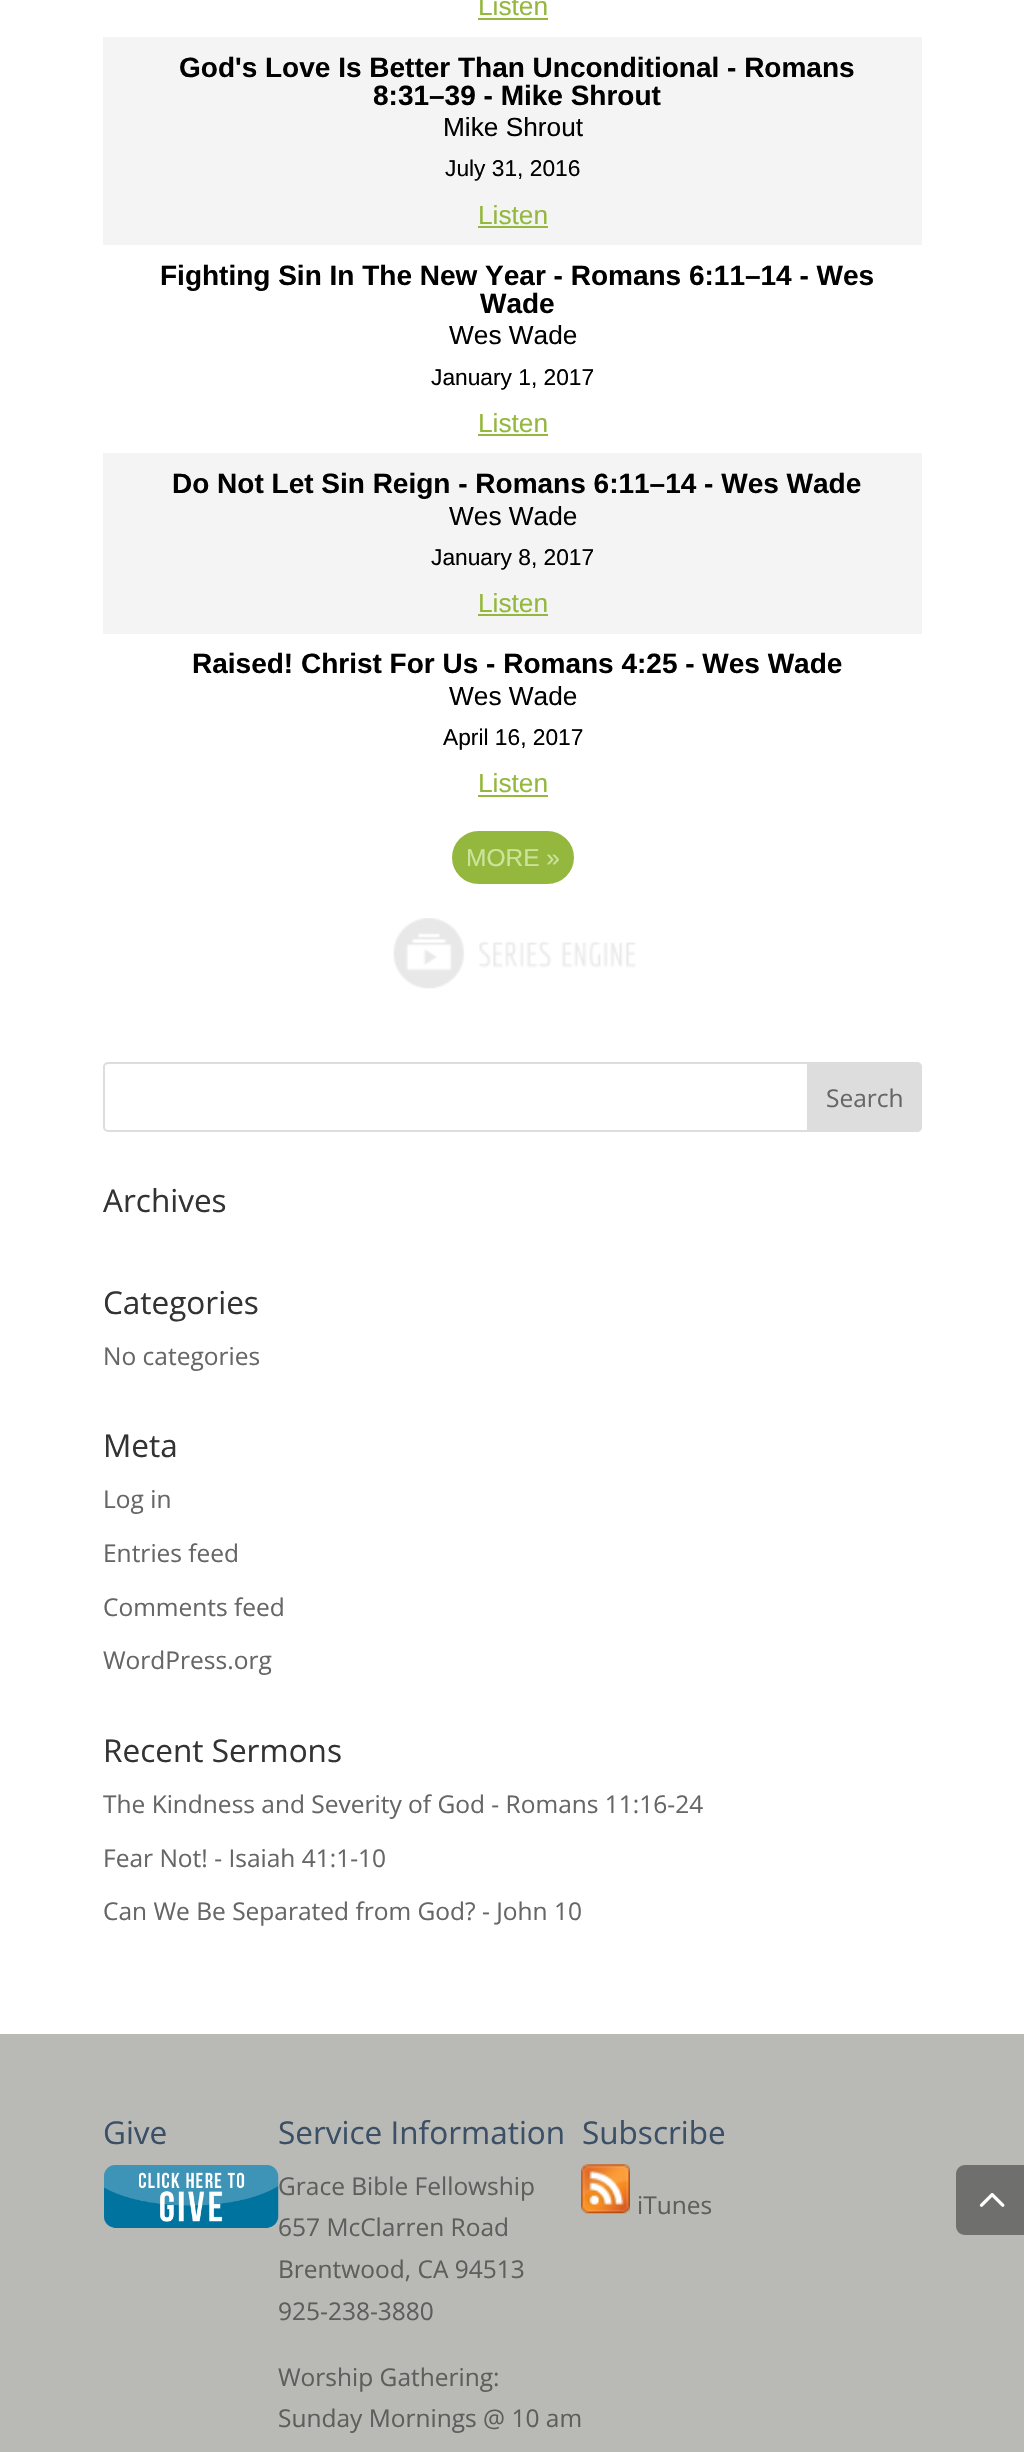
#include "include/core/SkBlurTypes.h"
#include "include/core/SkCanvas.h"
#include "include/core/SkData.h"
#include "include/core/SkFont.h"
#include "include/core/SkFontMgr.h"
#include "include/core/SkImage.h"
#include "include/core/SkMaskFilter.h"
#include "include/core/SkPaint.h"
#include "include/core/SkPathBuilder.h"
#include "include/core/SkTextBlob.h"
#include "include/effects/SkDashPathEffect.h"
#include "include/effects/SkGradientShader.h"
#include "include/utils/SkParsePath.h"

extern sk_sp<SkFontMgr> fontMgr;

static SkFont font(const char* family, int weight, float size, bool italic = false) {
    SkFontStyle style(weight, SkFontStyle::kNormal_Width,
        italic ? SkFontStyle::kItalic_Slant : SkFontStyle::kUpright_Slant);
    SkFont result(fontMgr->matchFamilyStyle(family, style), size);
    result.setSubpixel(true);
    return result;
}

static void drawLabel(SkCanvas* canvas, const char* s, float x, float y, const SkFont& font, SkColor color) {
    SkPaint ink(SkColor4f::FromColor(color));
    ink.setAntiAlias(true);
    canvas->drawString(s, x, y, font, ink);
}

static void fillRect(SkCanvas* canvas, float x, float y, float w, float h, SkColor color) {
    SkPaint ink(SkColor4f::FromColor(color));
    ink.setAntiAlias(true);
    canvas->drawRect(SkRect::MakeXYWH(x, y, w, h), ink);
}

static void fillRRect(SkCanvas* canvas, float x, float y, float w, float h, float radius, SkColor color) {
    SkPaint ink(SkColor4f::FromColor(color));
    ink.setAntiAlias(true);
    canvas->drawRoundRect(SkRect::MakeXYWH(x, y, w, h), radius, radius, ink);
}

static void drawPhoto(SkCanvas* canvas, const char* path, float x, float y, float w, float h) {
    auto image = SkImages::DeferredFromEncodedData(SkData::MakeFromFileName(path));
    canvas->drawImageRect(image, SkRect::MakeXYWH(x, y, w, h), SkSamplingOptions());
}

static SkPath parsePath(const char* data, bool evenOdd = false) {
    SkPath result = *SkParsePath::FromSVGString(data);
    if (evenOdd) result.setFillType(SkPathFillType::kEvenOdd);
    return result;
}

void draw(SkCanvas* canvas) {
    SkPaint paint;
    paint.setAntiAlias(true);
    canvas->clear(0xFFFFFFFF);
    SkFont font1 = font("Liberation Sans", 400, 26.25f);
    drawLabel(canvas, "Listen", 478, 15, font1, 0xFF94B83D);
    fillRect(canvas, 478, 18, 70, 2, 0xFF94B83D);
    fillRect(canvas, 103, 37, 819, 208, 0xFFF4F4F4);
    SkFont font2 = font("Liberation Sans", 700, 28);
    drawLabel(canvas, "God's Love Is Better Than Unconditional - Romans", 179, 77, font2, 0xFF000000);
    drawLabel(canvas, "8:31–39 - Mike Shrout", 373, 105, font2, 0xFF000000);
    drawLabel(canvas, "Mike Shrout", 443, 136, font1, 0xFF000000);
    SkFont font3 = font("Liberation Sans", 400, 22.75f);
    drawLabel(canvas, "July 31, 2016", 445, 176, font3, 0xFF000000);
    drawLabel(canvas, "Listen", 478, 224, font1, 0xFF94B83D);
    fillRect(canvas, 478, 226, 70, 2, 0xFF94B83D);
    drawLabel(canvas, "Fighting Sin In The New Year - Romans 6:11–14 - Wes", 160, 285, font2, 0xFF000000);
    drawLabel(canvas, "Wade", 480, 313, font2, 0xFF000000);
    drawLabel(canvas, "Wes Wade", 449, 344, font1, 0xFF000000);
    drawLabel(canvas, "January 1, 2017", 431, 385, font3, 0xFF000000);
    drawLabel(canvas, "Listen", 478, 432, font1, 0xFF94B83D);
    fillRect(canvas, 478, 434, 70, 2, 0xFF94B83D);
    fillRect(canvas, 103, 453, 819, 181, 0xFFF4F4F4);
    drawLabel(canvas, "Do Not Let Sin Reign - Romans 6:11–14 - Wes Wade", 172, 493, font2, 0xFF000000);
    drawLabel(canvas, "Wes Wade", 449, 525, font1, 0xFF000000);
    drawLabel(canvas, "January 8, 2017", 431, 565, font3, 0xFF000000);
    drawLabel(canvas, "Listen", 478, 612, font1, 0xFF94B83D);
    fillRect(canvas, 478, 614, 70, 2, 0xFF94B83D);
    drawLabel(canvas, "Raised! Christ For Us - Romans 4:25 - Wes Wade", 192, 673, font2, 0xFF000000);
    drawLabel(canvas, "Wes Wade", 449, 705, font1, 0xFF000000);
    drawLabel(canvas, "April 16, 2017", 443, 745, font3, 0xFF000000);
    drawLabel(canvas, "Listen", 478, 792, font1, 0xFF94B83D);
    fillRect(canvas, 478, 795, 70, 2, 0xFF94B83D);
    fillRRect(canvas, 452, 831, 122, 53, 26.5f, 0xFF94B83D);
    SkFont font4 = font("Liberation Sans", 400, 24.5f);
    drawLabel(canvas, "MORE »", 466, 866, font4, 0xFFCEE39A);
    drawPhoto(canvas, "assets/img1.png", 393, 918, 243, 71);
    paint.setStroke(true);
    paint.setStrokeWidth(2);
    paint.setColor(0xFFDDDDDD);
    canvas->drawRoundRect(SkRect::MakeXYWH(104, 1063, 817, 68), 4, 4, paint);
    paint.setStroke(false);
    canvas->drawPath(parsePath("M808 1063H917C919 1063 921 1065 921 1067V1127C921 1129 919 1131 917 1131H808Z"), paint);
    paint.setStroke(true);
    canvas->drawPath(parsePath("M808 1063H917C919 1063 921 1065 921 1067V1127C921 1129 919 1131 917 1131H808Z"), paint);
    SkFont font5 = font("Open Sans", 400, 24.5f);
    drawLabel(canvas, "Search", 826, 1107, font5, 0xFF666666);
    SkFont font6 = font("Open Sans", 400, 31.5f);
    drawLabel(canvas, "Archives", 103, 1212, font6, 0xFF333333);
    drawLabel(canvas, "Categories", 103, 1314, font6, 0xFF333333);
    drawLabel(canvas, "No categories", 103, 1365, font5, 0xFF666666);
    drawLabel(canvas, "Meta", 103, 1457, font6, 0xFF333333);
    drawLabel(canvas, "Log in", 103, 1508, font5, 0xFF666666);
    drawLabel(canvas, "Entries feed", 103, 1562, font5, 0xFF666666);
    drawLabel(canvas, "Comments feed", 103, 1616, font5, 0xFF666666);
    drawLabel(canvas, "WordPress.org", 103, 1669, font5, 0xFF666666);
    drawLabel(canvas, "Recent Sermons", 103, 1762, font6, 0xFF333333);
    drawLabel(canvas, "The Kindness and Severity of God - Romans 11:16-24", 103, 1813, font5, 0xFF666666);
    drawLabel(canvas, "Fear Not! - Isaiah 41:1-10", 103, 1867, font5, 0xFF666666);
    drawLabel(canvas, "Can We Be Separated from God? - John 10", 103, 1920, font5, 0xFF666666);
    fillRect(canvas, 0, 2034, 1024, 418, 0xFFB9B9B5);
    drawLabel(canvas, "Give", 103, 2144, font6, 0xFF3B5067);
    drawPhoto(canvas, "assets/img2.png", 104, 2165, 175, 63);
    drawLabel(canvas, "Service Information", 278, 2144, font6, 0xFF3B5067);
    drawLabel(canvas, "Grace Bible Fellowship", 278, 2195, font5, 0xFF5E5E5E);
    drawLabel(canvas, "657 McClarren Road", 278, 2236, font5, 0xFF5E5E5E);
    drawLabel(canvas, "Brentwood, CA 94513", 278, 2278, font5, 0xFF5E5E5E);
    drawLabel(canvas, "925-238-3880", 278, 2320, font5, 0xFF5E5E5E);
    drawLabel(canvas, "Worship Gathering:", 278, 2386, font5, 0xFF5E5E5E);
    drawLabel(canvas, "Sunday Mornings @ 10 am", 278, 2427, font5, 0xFF5E5E5E);
    drawLabel(canvas, "Subscribe", 582, 2144, font6, 0xFF3B5067);
    drawPhoto(canvas, "assets/img3.png", 581, 2164, 49, 50);
    drawLabel(canvas, "iTunes", 637, 2214, font5, 0xFF5E5E5E);
    paint.setStroke(false);
    paint.setColor(0xFF6F6F6D);
    canvas->drawPath(parsePath("M965 2165H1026V2235H965C960 2235 956 2231 956 2226V2174C956 2169 960 2165 965 2165Z"), paint);
    drawPhoto(canvas, "assets/img4.png", 979, 2193, 26, 14);
}
